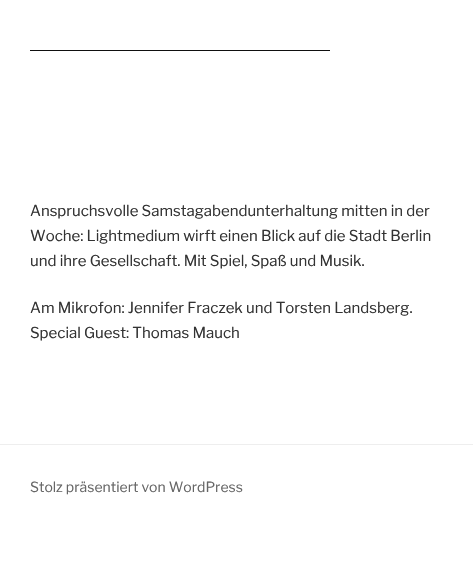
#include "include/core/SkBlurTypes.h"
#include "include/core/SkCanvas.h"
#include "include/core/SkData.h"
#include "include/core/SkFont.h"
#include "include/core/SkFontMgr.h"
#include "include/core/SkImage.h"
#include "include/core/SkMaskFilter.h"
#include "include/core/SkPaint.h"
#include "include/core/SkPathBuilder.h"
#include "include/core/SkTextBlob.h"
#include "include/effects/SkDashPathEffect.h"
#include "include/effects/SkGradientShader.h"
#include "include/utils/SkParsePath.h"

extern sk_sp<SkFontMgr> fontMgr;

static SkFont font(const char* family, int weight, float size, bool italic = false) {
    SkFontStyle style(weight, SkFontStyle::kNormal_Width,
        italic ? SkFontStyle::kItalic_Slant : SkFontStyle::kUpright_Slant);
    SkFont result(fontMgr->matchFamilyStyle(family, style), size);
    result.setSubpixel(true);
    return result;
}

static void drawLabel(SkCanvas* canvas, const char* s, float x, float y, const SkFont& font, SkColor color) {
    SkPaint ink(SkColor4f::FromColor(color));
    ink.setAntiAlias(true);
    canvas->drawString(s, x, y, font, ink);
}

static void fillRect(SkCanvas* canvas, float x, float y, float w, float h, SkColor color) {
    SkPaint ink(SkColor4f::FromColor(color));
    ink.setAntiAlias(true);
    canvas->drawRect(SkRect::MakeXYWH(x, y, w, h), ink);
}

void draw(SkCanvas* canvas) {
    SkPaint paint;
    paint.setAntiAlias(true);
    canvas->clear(0xFFFFFFFF);
    fillRect(canvas, 30, 50, 300, 1, 0xFF0F0F0F);
    SkFont font1 = font("Libre Franklin", 400, 15);
    drawLabel(canvas, "Anspruchsvolle Samstagabendunterhaltung mitten in der", 30, 216, font1, 0xFF333333);
    drawLabel(canvas, "Woche: Lightmedium wirft einen Blick auf die Stadt Berlin", 30, 241, font1, 0xFF333333);
    drawLabel(canvas, "und ihre Gesellschaft. Mit Spiel, Spaß und Musik.", 30, 266, font1, 0xFF333333);
    drawLabel(canvas, "Am Mikrofon: Jennifer Fraczek und Torsten Landsberg.", 30, 313, font1, 0xFF333333);
    drawLabel(canvas, "Special Guest: Thomas Mauch", 30, 338, font1, 0xFF333333);
    fillRect(canvas, 0, 444, 473, 1, 0xFFEEEEEE);
    SkFont font2 = font("Libre Franklin", 400, 14);
    drawLabel(canvas, "Stolz präsentiert von WordPress", 30, 492, font2, 0xFF666666);
}
